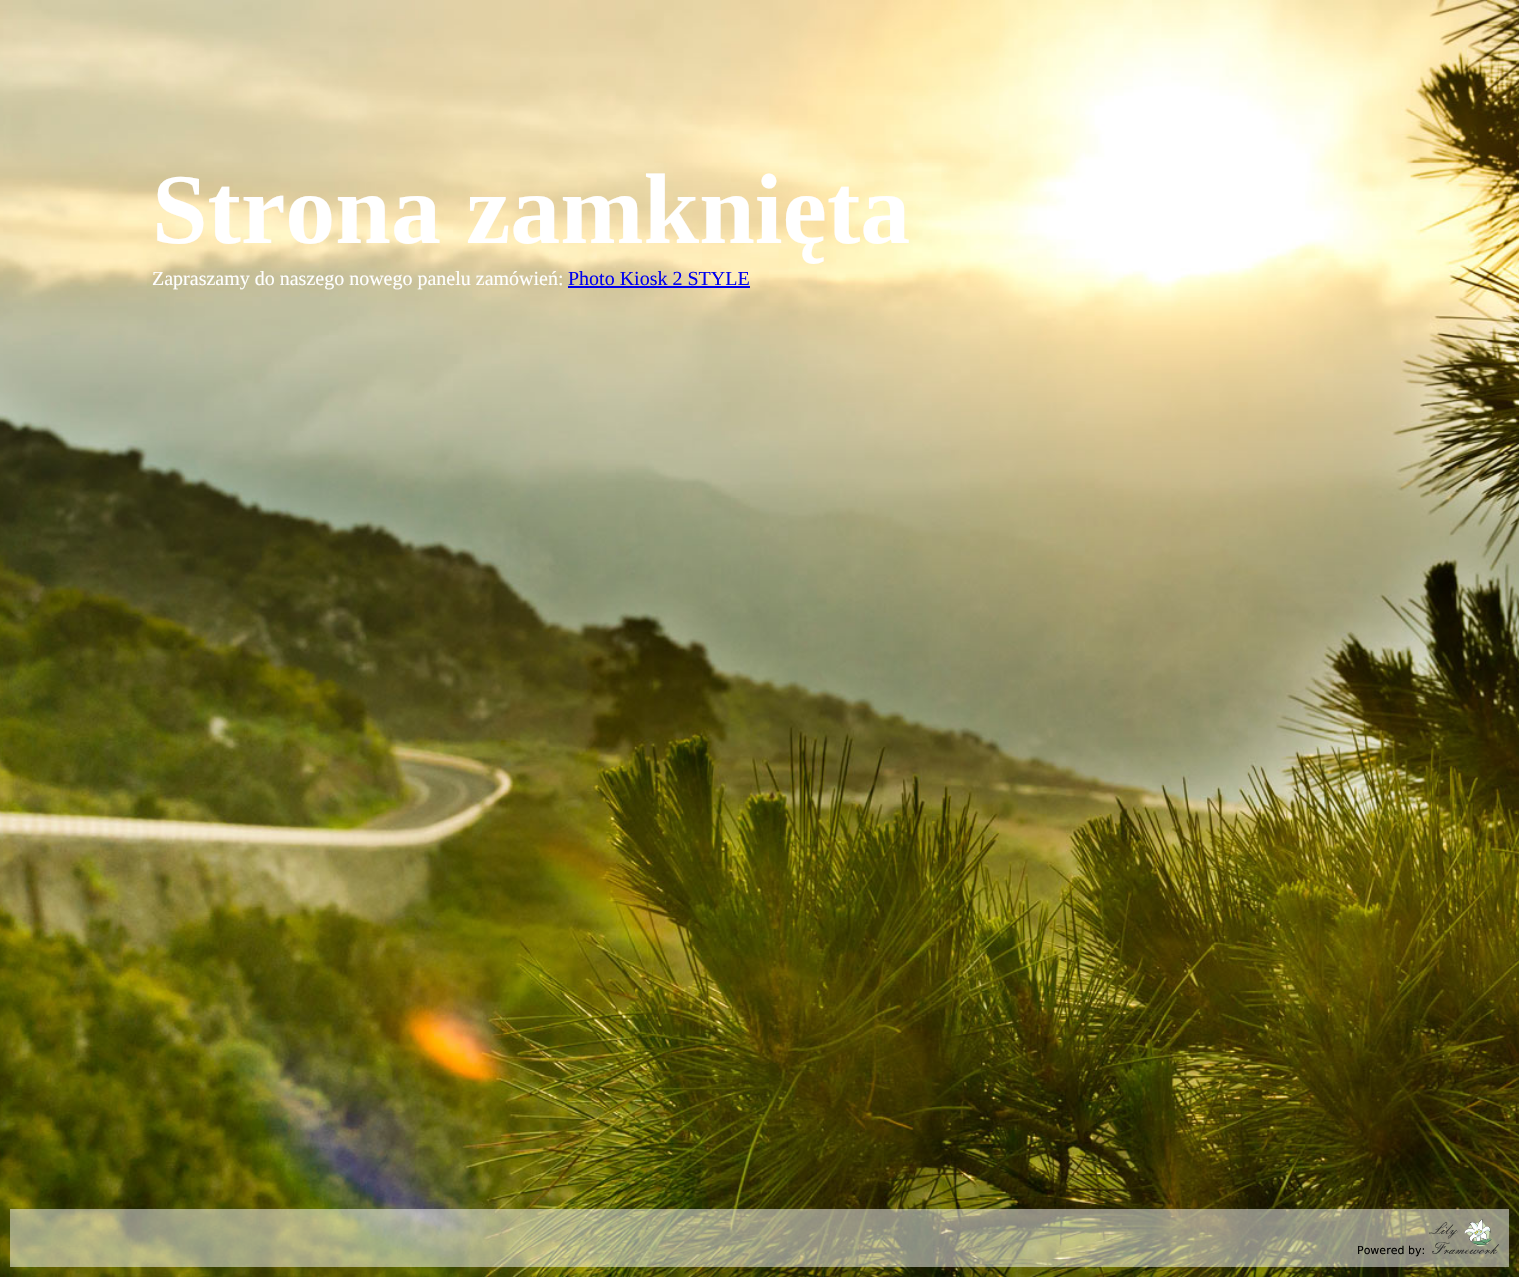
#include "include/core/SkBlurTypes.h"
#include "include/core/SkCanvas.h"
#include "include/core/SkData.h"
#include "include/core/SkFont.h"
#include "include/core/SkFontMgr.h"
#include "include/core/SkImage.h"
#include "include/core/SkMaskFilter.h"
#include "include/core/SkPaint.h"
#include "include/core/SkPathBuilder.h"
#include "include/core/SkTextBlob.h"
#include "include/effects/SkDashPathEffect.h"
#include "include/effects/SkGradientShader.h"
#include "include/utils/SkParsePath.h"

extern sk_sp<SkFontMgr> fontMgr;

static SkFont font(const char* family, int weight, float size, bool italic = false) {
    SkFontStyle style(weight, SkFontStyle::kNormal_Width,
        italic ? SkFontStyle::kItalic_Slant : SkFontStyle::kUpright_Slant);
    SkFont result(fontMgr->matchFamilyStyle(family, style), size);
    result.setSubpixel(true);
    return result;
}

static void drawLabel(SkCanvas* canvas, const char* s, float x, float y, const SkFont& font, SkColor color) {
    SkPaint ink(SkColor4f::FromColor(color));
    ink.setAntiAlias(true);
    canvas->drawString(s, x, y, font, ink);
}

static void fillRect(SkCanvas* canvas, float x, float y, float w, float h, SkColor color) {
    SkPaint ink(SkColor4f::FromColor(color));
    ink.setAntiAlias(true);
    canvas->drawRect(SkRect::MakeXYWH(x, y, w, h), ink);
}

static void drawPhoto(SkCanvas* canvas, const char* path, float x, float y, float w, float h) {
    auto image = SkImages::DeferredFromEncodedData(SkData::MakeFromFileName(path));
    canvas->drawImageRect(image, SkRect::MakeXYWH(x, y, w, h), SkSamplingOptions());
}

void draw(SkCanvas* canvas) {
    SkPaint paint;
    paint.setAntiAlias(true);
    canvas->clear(0xFFFFFFFF);
    drawPhoto(canvas, "assets/img1.png", 0, 0, 1519, 1277);
    SkFont font1 = font("Liberation Serif", 700, 100);
    drawLabel(canvas, "Strona zamknięta", 152, 243, font1, 0xFFFFFFFF);
    SkFont font2 = font("Liberation Serif", 400, 20);
    drawLabel(canvas, "Zapraszamy do naszego nowego panelu zamówień:", 152, 285, font2, 0xFFFFFFFF);
    drawLabel(canvas, "Photo Kiosk 2 STYLE", 568, 285, font2, 0xFF0000EE);
    fillRect(canvas, 568, 286, 182, 2, 0xFF0000EE);
    fillRect(canvas, 10, 1209, 1499, 58, 0x80FFFFFF);
    SkFont font3 = font("DejaVu Sans", 400, 11);
    drawLabel(canvas, "Powered by:", 1357, 1254, font3, 0xFF000000);
    drawPhoto(canvas, "assets/img2.png", 1429, 1219, 70, 35);
}
